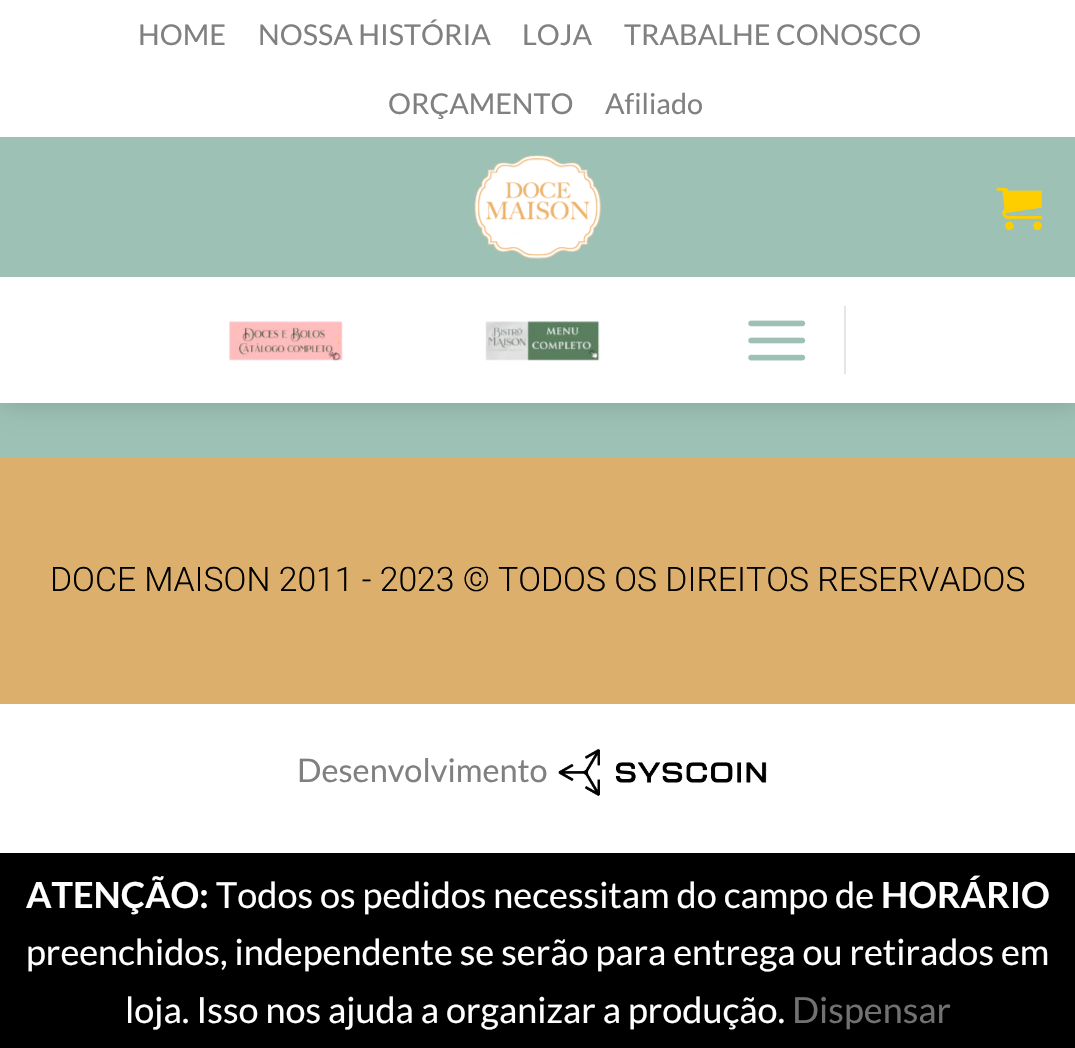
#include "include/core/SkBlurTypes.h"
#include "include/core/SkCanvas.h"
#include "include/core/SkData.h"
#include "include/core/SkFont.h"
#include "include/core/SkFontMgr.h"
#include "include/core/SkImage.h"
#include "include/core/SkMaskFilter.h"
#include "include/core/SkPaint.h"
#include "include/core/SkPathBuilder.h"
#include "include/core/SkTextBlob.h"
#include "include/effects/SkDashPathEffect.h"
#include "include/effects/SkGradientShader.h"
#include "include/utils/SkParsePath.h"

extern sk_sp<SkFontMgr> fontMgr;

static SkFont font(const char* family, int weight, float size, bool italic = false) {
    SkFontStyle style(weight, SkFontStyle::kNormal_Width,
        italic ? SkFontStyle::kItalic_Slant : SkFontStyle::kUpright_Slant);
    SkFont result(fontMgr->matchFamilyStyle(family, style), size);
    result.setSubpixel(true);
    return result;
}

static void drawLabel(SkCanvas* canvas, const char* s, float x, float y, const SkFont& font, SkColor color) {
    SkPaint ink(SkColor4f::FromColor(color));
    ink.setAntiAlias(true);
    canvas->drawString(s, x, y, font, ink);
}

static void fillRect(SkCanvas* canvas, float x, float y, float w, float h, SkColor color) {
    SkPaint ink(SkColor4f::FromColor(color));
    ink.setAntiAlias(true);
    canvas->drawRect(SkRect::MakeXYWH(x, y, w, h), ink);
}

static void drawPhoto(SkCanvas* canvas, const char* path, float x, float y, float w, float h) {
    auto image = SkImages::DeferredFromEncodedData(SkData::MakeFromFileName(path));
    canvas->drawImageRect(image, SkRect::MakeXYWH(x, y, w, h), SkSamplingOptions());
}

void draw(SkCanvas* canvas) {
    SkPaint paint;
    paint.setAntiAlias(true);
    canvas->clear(0xFFFFFFFF);
    fillRect(canvas, 0, 403, 1075, 54, 0xFF9DC1B5);
    paint.setColor(0x26000000);
    paint.setMaskFilter(SkMaskFilter::MakeBlur(kNormal_SkBlurStyle, 11));
    canvas->drawRect(SkRect::MakeXYWH(2, 2, 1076, 403), paint);
    paint.setMaskFilter(nullptr);
    fillRect(canvas, 0, 0, 1075, 137, 0xFFFFFFFF);
    SkFont font1 = font("Lato", 400, 28.75f);
    drawLabel(canvas, "HOME", 138, 45, font1, 0xFF808080);
    drawLabel(canvas, "NOSSA HISTÓRIA", 258, 45, font1, 0xFF808080);
    drawLabel(canvas, "LOJA", 522, 45, font1, 0xFF808080);
    drawLabel(canvas, "TRABALHE CONOSCO", 624, 45, font1, 0xFF808080);
    drawLabel(canvas, "ORÇAMENTO", 388, 114, font1, 0xFF808080);
    drawLabel(canvas, "Afiliado", 605, 114, font1, 0xFF808080);
    fillRect(canvas, 0, 137, 1075, 140, 0xFF9DC1B5);
    drawPhoto(canvas, "assets/img1.png", 474, 155, 128, 105);
    drawPhoto(canvas, "assets/img2.png", 996, 187, 46, 44);
    fillRect(canvas, 0, 277, 1075, 126, 0xFFFFFFFF);
    drawPhoto(canvas, "assets/img3.png", 229, 321, 114, 40);
    drawPhoto(canvas, "assets/img4.png", 485, 321, 115, 40);
    drawPhoto(canvas, "assets/img5.png", 748, 320, 58, 41);
    fillRect(canvas, 844, 306, 2, 68, 0xFFE6E6E6);
    fillRect(canvas, 0, 457, 1075, 247, 0xFFDDAF6D);
    SkFont font2 = font("Roboto", 300, 33.75f);
    drawLabel(canvas, "DOCE MAISON 2011 - 2023 © TODOS OS DIREITOS RESERVADOS", 50, 591, font2, 0xFF000000);
    SkFont font3 = font("Lato", 400, 32.5f);
    drawLabel(canvas, "Desenvolvimento", 297, 782, font3, 0xFF808080);
    drawPhoto(canvas, "assets/img6.png", 558, 748, 209, 48);
    fillRect(canvas, 0, 853, 1075, 195, 0xFF000000);
    SkFont font4 = font("Lato", 700, 36);
    drawLabel(canvas, "ATENÇÃO:", 26, 908, font4, 0xFFFFFFFF);
    SkFont font5 = font("Lato", 400, 36);
    drawLabel(canvas, "Todos os pedidos necessitam do campo de", 216, 908, font5, 0xFFFFFFFF);
    drawLabel(canvas, "HORÁRIO", 881, 908, font4, 0xFFFFFFFF);
    drawLabel(canvas, "preenchidos, independente se serão para entrega ou retirados em", 26, 965, font5, 0xFFFFFFFF);
    drawLabel(canvas, "loja. Isso nos ajuda a organizar a produção.", 125, 1023, font5, 0xFFFFFFFF);
    drawLabel(canvas, "Dispensar", 792, 1023, font5, 0xFF717171);
}
